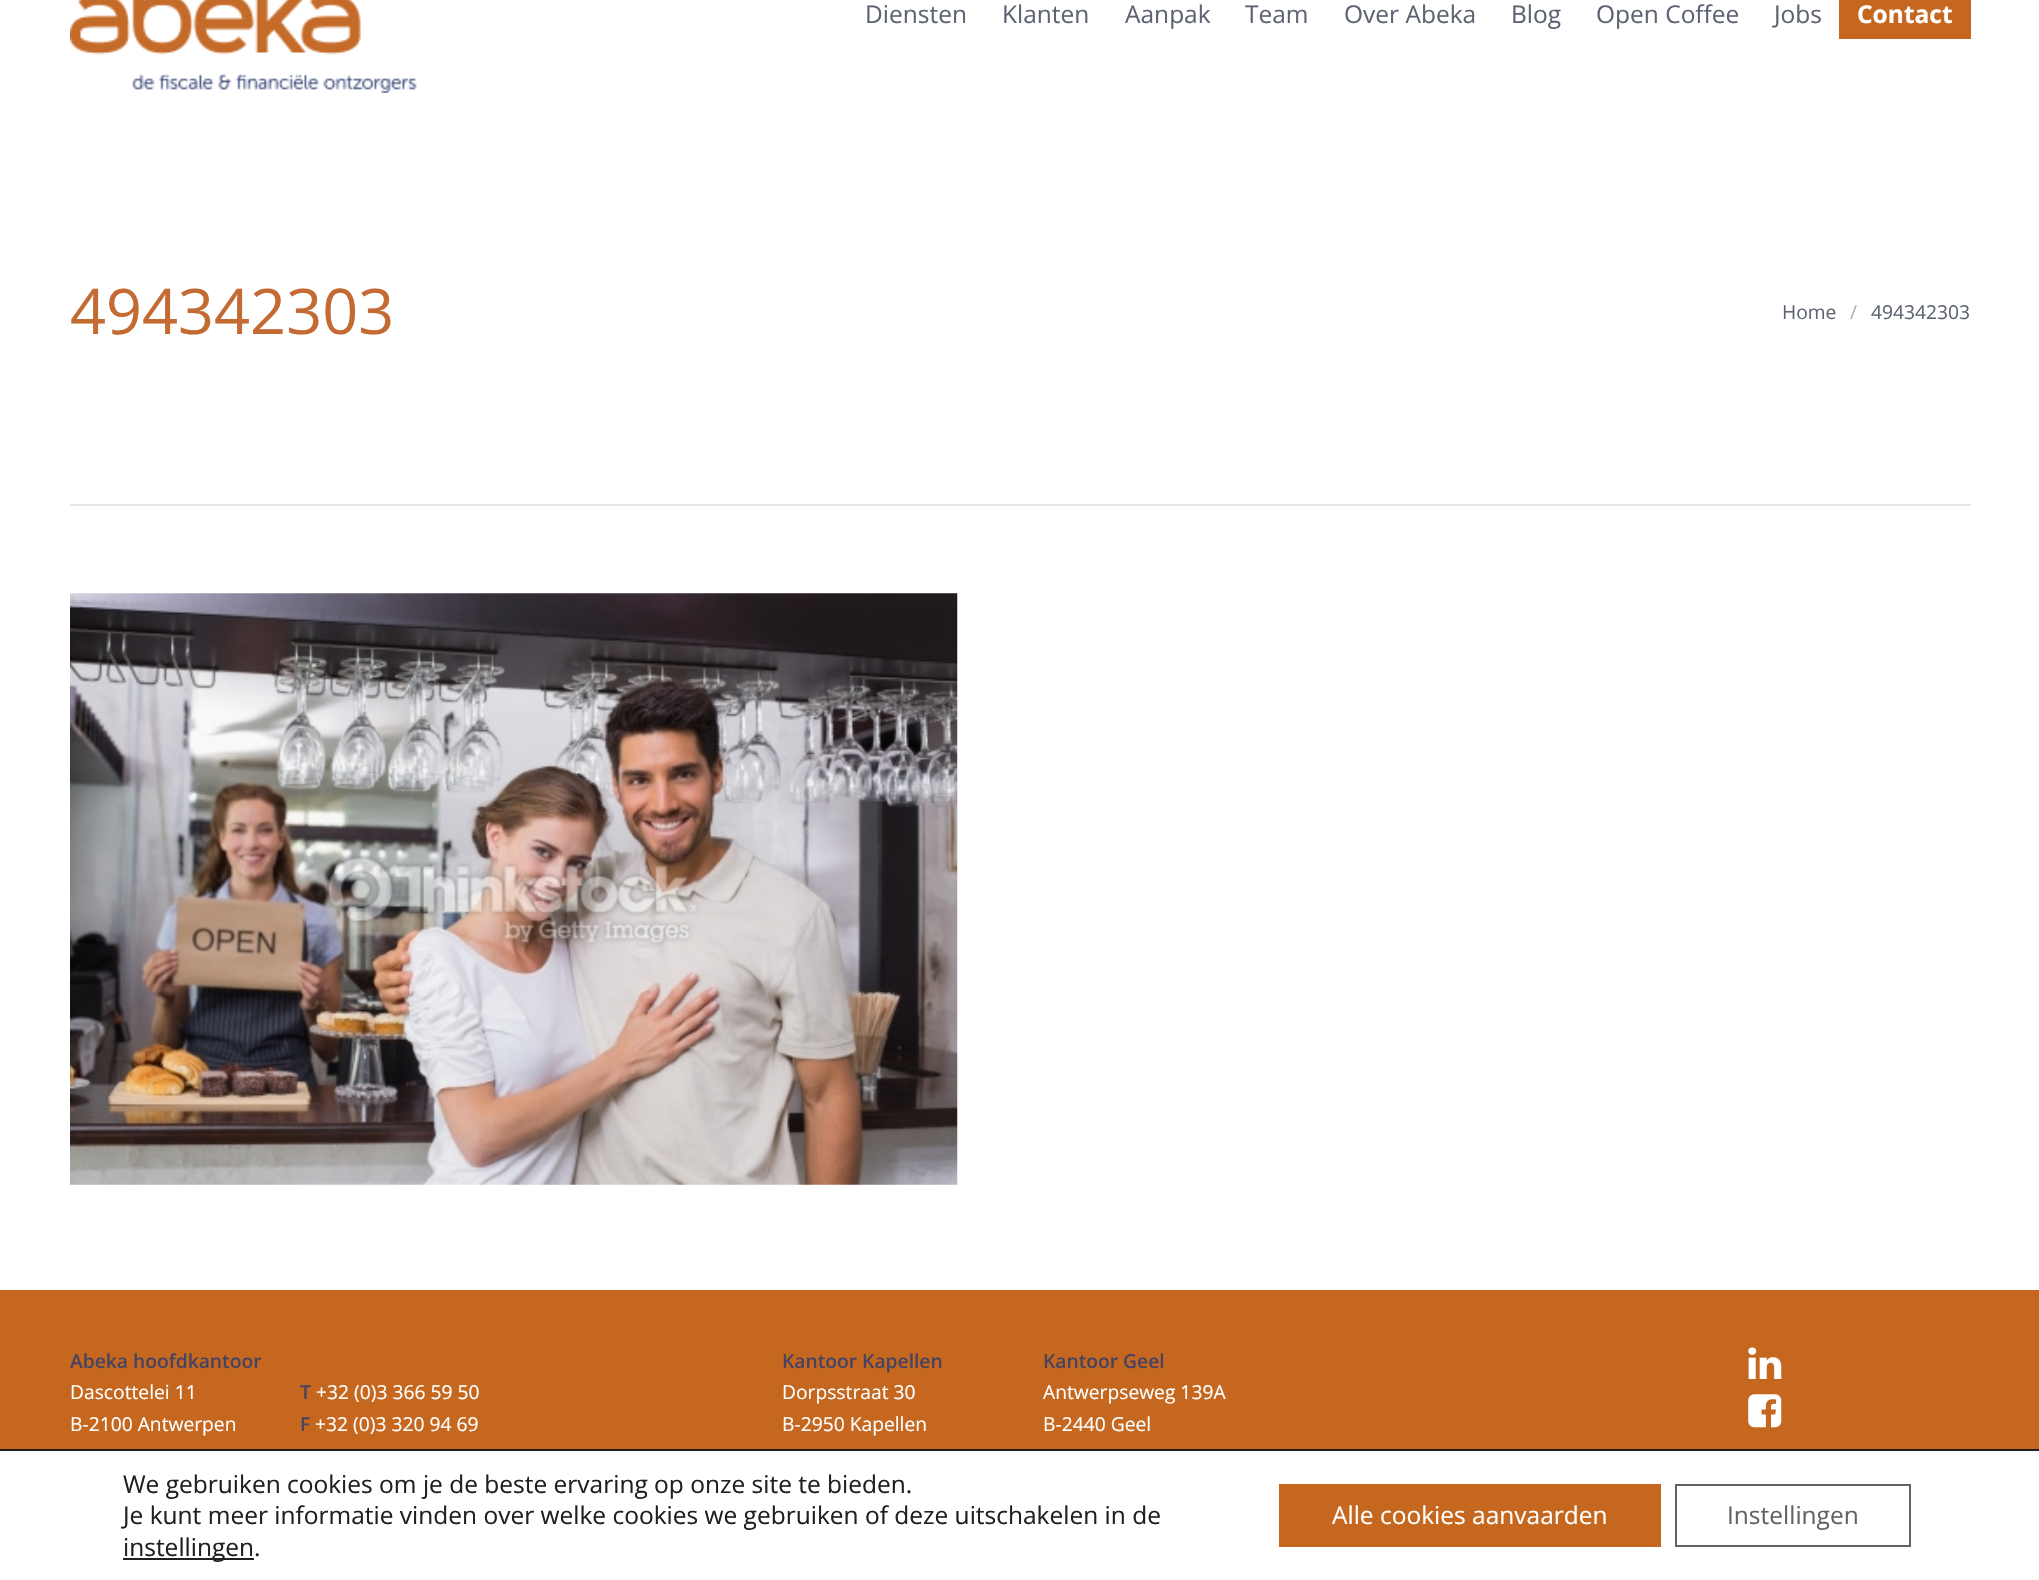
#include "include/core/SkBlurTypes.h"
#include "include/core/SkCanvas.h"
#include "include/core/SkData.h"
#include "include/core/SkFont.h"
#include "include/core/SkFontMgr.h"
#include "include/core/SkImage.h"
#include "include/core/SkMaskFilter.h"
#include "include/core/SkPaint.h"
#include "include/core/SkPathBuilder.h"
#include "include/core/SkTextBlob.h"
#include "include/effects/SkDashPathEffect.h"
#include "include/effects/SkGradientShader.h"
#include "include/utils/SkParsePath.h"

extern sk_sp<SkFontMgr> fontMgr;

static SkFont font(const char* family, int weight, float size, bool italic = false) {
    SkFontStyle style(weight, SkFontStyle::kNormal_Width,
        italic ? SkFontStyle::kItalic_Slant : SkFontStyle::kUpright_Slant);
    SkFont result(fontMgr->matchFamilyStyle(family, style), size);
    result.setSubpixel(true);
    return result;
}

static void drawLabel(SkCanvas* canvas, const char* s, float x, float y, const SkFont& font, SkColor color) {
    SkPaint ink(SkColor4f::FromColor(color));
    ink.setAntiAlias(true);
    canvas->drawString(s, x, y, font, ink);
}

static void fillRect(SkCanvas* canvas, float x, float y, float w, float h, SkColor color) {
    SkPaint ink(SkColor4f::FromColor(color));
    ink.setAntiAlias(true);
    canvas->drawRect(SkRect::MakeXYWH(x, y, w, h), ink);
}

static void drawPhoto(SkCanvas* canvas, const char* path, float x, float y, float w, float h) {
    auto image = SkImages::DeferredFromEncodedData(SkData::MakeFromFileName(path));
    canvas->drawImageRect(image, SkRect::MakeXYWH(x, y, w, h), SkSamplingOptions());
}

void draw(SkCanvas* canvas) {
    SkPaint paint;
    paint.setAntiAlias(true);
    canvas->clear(0xFFFFFFFF);
    drawPhoto(canvas, "assets/img1.png", 70, 0, 347, 93);
    SkFont font1 = font("Open Sans", 400, 24.5f);
    drawLabel(canvas, "Diensten", 865, 23, font1, 0xFF5D6372);
    drawLabel(canvas, "Klanten", 1002, 23, font1, 0xFF5D6372);
    drawLabel(canvas, "Aanpak", 1125, 23, font1, 0xFF5D6372);
    drawLabel(canvas, "Team", 1245, 23, font1, 0xFF5D6372);
    drawLabel(canvas, "Over Abeka", 1344, 23, font1, 0xFF5D6372);
    drawLabel(canvas, "Blog", 1511, 23, font1, 0xFF5D6372);
    drawLabel(canvas, "Open Coffee", 1596, 23, font1, 0xFF5D6372);
    drawLabel(canvas, "Jobs", 1774, 23, font1, 0xFF5D6372);
    fillRect(canvas, 1839, 0, 132, 39, 0xFFC6671F);
    SkFont font2 = font("Open Sans", 700, 24.5f);
    drawLabel(canvas, "Contact", 1857, 23, font2, 0xFFFFFFFF);
    fillRect(canvas, 70, 504, 1901, 2, 0xFFE6E6E6);
    SkFont font3 = font("Open Sans", 400, 63);
    drawLabel(canvas, "494342303", 70, 334, font3, 0xFFC36B33);
    SkFont font4 = font("Open Sans", 400, 19.25f);
    drawLabel(canvas, "Home", 1782, 319, font4, 0xFF5D6372);
    drawLabel(canvas, "/", 1850, 319, font4, 0xFFAEB1B9);
    drawLabel(canvas, "494342303", 1871, 319, font4, 0xFF5D6372);
    drawPhoto(canvas, "assets/img2.png", 70, 593, 888, 592);
    fillRect(canvas, 0, 1290, 2039, 159, 0xFFC6671F);
    SkFont font5 = font("Open Sans", 600, 19.25f);
    drawLabel(canvas, "Abeka hoofdkantoor", 70, 1368, font5, 0xFF48435F);
    drawLabel(canvas, "Dascottelei 11", 70, 1399, font4, 0xFFFFFFFF);
    drawLabel(canvas, "B-2100 Antwerpen", 70, 1431, font4, 0xFFFFFFFF);
    drawLabel(canvas, "T", 300, 1399, font5, 0xFF48435F);
    drawLabel(canvas, "+32 (0)3 366 59 50", 316, 1399, font4, 0xFFFFFFFF);
    drawLabel(canvas, "F", 300, 1431, font5, 0xFF48435F);
    drawLabel(canvas, "+32 (0)3 320 94 69", 315, 1431, font4, 0xFFFFFFFF);
    drawLabel(canvas, "Kantoor Kapellen", 782, 1368, font5, 0xFF48435F);
    drawLabel(canvas, "Dorpsstraat 30", 782, 1399, font4, 0xFFFFFFFF);
    drawLabel(canvas, "B-2950 Kapellen", 782, 1431, font4, 0xFFFFFFFF);
    drawLabel(canvas, "Kantoor Geel", 1043, 1368, font5, 0xFF48435F);
    drawLabel(canvas, "Antwerpseweg 139A", 1043, 1399, font4, 0xFFFFFFFF);
    drawLabel(canvas, "B-2440 Geel", 1043, 1431, font4, 0xFFFFFFFF);
    drawPhoto(canvas, "assets/img3.png", 1748, 1347, 34, 32);
    drawPhoto(canvas, "assets/img4.png", 1748, 1394, 34, 34);
    fillRect(canvas, 0, 1449, 2039, 2, 0xFF202020);
    drawLabel(canvas, "We gebruiken cookies om je de beste ervaring op onze site te bieden.", 123, 1493, font1, 0xFF202020);
    drawLabel(canvas, "Je kunt meer informatie vinden over welke cookies we gebruiken of deze uitschakelen in de", 123, 1524, font1, 0xFF202020);
    fillRect(canvas, 123, 1558, 131, 2, 0xFF202020);
    drawLabel(canvas, "instellingen.", 123, 1556, font1, 0xFF202020);
    fillRect(canvas, 1279, 1484, 382, 63, 0xFFC6671F);
    drawLabel(canvas, "Alle cookies aanvaarden", 1332, 1524, font1, 0xFFFFFFFF);
    paint.setStroke(true);
    paint.setStrokeWidth(2);
    paint.setColor(0xFF636363);
    canvas->drawRect(SkRect::MakeXYWH(1676, 1485, 234, 61), paint);
    drawLabel(canvas, "Instellingen", 1727, 1524, font1, 0xFF636363);
}
